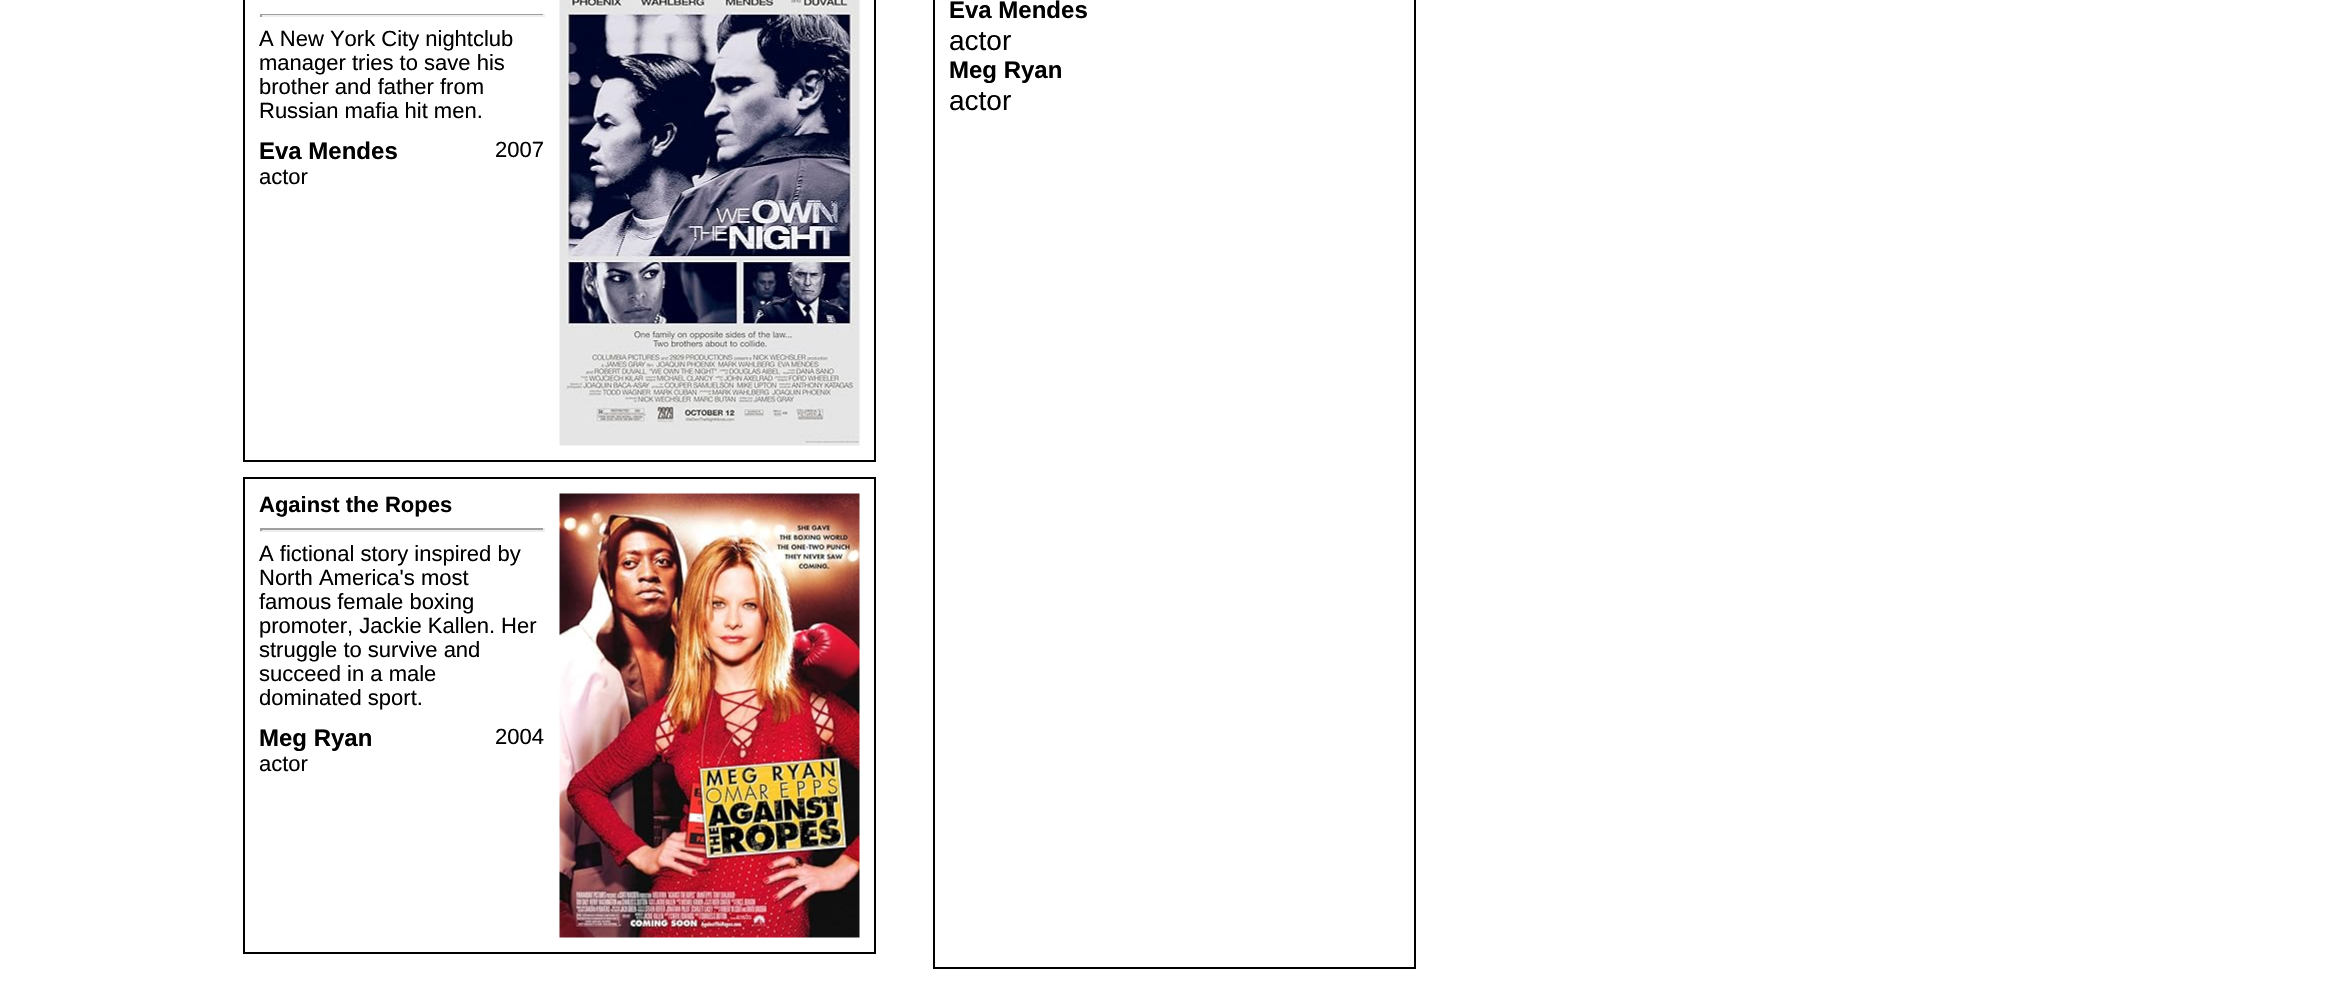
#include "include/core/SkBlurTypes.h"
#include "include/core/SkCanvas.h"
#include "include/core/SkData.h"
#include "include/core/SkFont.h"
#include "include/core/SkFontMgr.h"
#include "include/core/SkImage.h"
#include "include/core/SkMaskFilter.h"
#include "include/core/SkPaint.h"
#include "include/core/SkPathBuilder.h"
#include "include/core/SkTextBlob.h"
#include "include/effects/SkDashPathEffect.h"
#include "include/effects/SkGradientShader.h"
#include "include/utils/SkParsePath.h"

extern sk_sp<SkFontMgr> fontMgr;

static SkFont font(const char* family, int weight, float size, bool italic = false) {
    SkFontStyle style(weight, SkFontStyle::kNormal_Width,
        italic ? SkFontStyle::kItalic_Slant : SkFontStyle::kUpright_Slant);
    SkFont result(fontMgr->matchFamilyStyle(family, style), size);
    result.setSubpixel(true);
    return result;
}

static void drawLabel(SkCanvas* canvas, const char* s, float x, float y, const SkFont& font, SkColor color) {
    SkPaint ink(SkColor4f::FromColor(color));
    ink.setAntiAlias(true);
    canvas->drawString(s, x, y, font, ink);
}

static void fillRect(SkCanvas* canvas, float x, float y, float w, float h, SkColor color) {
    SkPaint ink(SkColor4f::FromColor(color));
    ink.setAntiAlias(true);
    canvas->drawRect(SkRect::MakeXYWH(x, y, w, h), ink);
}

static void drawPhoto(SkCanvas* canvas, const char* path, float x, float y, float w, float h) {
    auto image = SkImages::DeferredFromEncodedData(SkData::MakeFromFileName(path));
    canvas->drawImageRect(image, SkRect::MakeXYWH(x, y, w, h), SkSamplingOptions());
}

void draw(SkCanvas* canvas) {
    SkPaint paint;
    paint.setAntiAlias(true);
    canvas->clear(0xFFFFFFFF);
    paint.setStroke(true);
    paint.setStrokeWidth(2);
    paint.setColor(0xFF000000);
    canvas->drawRect(SkRect::MakeXYWH(244, -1, 631, 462), paint);
    fillRect(canvas, 260, 14, 285, 1, 0xFF9F9F9F);
    fillRect(canvas, 543, 14, 2, 3, 0xFFEEEEEE);
    fillRect(canvas, 260, 15, 285, 2, 0xFFEEEEEE);
    fillRect(canvas, 260, 14, 2, 3, 0xFF9F9F9F);
    SkFont font1 = font("Liberation Sans", 400, 22);
    drawLabel(canvas, "A New York City nightclub", 259, 46, font1, 0xFF000000);
    drawLabel(canvas, "manager tries to save his", 259, 70, font1, 0xFF000000);
    drawLabel(canvas, "brother and father from", 259, 94, font1, 0xFF000000);
    drawLabel(canvas, "Russian mafia hit men.", 259, 118, font1, 0xFF000000);
    SkFont font2 = font("Liberation Sans", 700, 24);
    drawLabel(canvas, "Eva Mendes", 259, 159, font2, 0xFF000000);
    drawLabel(canvas, "2007", 495, 157, font1, 0xFF000000);
    drawLabel(canvas, "actor", 259, 184, font1, 0xFF000000);
    drawPhoto(canvas, "assets/img1.png", 559, 0, 301, 446);
    canvas->drawRect(SkRect::MakeXYWH(244, 478, 631, 475), paint);
    SkFont font3 = font("Liberation Sans", 700, 22);
    drawLabel(canvas, "Against the Ropes", 259, 512, font3, 0xFF000000);
    fillRect(canvas, 260, 528, 285, 2, 0xFF9F9F9F);
    fillRect(canvas, 543, 528, 2, 3, 0xFFEEEEEE);
    fillRect(canvas, 260, 530, 285, 2, 0xFFEEEEEE);
    fillRect(canvas, 260, 528, 2, 3, 0xFF9F9F9F);
    drawLabel(canvas, "A fictional story inspired by", 259, 561, font1, 0xFF000000);
    drawLabel(canvas, "North America's most", 259, 585, font1, 0xFF000000);
    drawLabel(canvas, "famous female boxing", 259, 609, font1, 0xFF000000);
    drawLabel(canvas, "promoter, Jackie Kallen. Her", 259, 633, font1, 0xFF000000);
    drawLabel(canvas, "struggle to survive and", 259, 657, font1, 0xFF000000);
    drawLabel(canvas, "succeed in a male", 259, 681, font1, 0xFF000000);
    drawLabel(canvas, "dominated sport.", 259, 705, font1, 0xFF000000);
    drawLabel(canvas, "Meg Ryan", 259, 746, font2, 0xFF000000);
    drawLabel(canvas, "2004", 495, 744, font1, 0xFF000000);
    drawLabel(canvas, "actor", 259, 771, font1, 0xFF000000);
    drawPhoto(canvas, "assets/img2.png", 559, 493, 301, 445);
    canvas->drawRect(SkRect::MakeXYWH(934, -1, 481, 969), paint);
    drawLabel(canvas, "Eva Mendes", 949, 18, font2, 0xFF000000);
    SkFont font4 = font("Liberation Sans", 400, 28);
    drawLabel(canvas, "actor", 949, 50, font4, 0xFF000000);
    drawLabel(canvas, "Meg Ryan", 949, 78, font2, 0xFF000000);
    drawLabel(canvas, "actor", 949, 110, font4, 0xFF000000);
}
